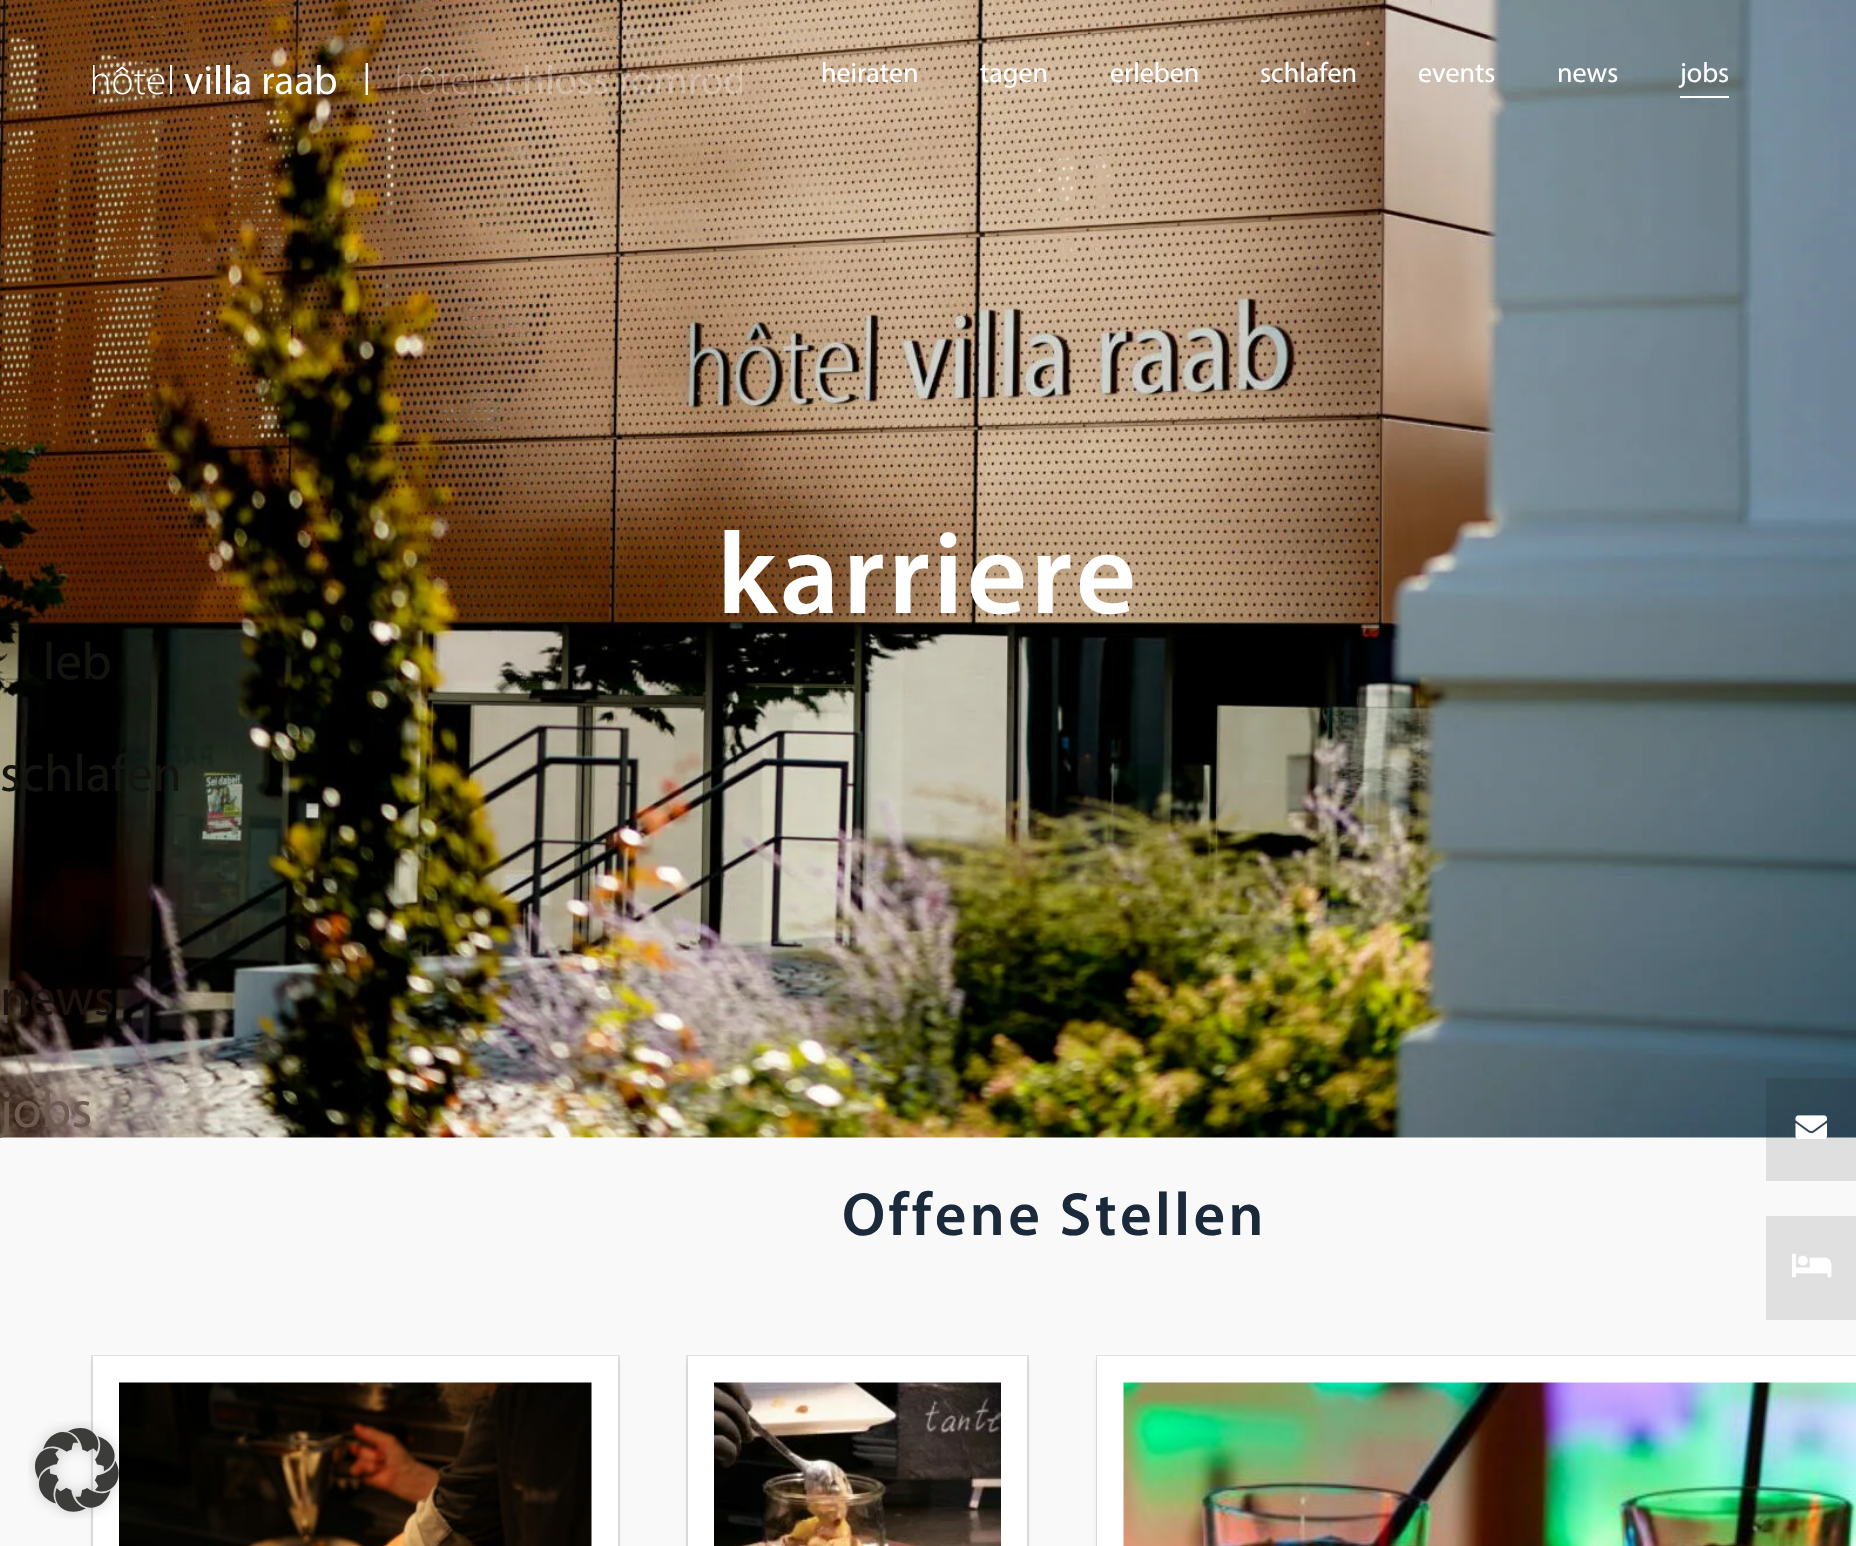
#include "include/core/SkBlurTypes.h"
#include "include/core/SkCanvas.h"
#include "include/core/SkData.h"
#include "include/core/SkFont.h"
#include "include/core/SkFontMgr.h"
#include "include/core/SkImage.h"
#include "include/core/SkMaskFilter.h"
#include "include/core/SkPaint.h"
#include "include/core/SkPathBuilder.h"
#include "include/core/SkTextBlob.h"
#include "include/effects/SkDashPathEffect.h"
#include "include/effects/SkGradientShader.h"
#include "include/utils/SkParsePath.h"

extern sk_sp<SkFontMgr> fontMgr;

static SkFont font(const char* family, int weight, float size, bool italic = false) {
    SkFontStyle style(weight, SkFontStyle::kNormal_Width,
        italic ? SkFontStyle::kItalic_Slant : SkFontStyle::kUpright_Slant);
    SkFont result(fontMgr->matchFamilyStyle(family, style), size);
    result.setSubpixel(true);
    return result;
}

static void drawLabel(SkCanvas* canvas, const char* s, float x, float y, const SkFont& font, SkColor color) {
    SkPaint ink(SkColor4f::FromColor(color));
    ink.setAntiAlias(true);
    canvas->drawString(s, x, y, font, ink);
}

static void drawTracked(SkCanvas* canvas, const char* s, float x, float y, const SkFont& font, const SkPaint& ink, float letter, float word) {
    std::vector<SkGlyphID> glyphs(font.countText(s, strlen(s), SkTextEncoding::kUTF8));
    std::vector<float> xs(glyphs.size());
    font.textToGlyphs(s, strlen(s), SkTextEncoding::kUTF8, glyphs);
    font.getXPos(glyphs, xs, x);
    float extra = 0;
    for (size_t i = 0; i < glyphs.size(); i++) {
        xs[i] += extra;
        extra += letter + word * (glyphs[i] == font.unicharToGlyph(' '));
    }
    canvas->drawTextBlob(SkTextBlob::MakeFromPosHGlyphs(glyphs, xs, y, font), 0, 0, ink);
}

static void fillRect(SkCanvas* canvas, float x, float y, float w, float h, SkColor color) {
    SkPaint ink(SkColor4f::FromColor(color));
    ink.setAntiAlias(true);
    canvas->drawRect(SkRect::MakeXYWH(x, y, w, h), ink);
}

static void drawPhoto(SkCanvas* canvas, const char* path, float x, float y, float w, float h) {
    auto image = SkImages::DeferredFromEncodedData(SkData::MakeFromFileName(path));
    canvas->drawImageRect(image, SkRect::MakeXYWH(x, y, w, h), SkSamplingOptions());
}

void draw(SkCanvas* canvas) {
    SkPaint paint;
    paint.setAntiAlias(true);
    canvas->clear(0xFFFFFFFF);
    drawPhoto(canvas, "assets/img3.png", 0, 0, 1856, 1138);
    drawPhoto(canvas, "assets/img1.png", 93, 65, 243, 30);
    SkFont font1 = font("Myriad", 400, 32);
    drawLabel(canvas, "|", 363, 87, font1, 0xFFFFFFFF);
    drawPhoto(canvas, "assets/img2.png", 397, 65, 345, 30);
    SkFont font2 = font("Myriad", 400, 28);
    drawLabel(canvas, "heiraten", 821, 82, font2, 0xFFFFFFFF);
    drawLabel(canvas, "tagen", 980, 82, font2, 0xFFFFFFFF);
    drawLabel(canvas, "erleben", 1110, 82, font2, 0xFFFFFFFF);
    drawLabel(canvas, "schlafen", 1260, 82, font2, 0xFFFFFFFF);
    drawLabel(canvas, "events", 1418, 82, font2, 0xFFFFFFFF);
    drawLabel(canvas, "news", 1557, 82, font2, 0xFFFFFFFF);
    drawLabel(canvas, "jobs", 1680, 82, font2, 0xFFFFFFFF);
    fillRect(canvas, 1680, 96, 49, 2, 0xFFFFFFFF);
    SkFont font3 = font("Myriad", 400, 52.5f);
    drawLabel(canvas, "leb", 43, 679, font3, 0xFF14140F);
    drawLabel(canvas, "schlafen", 0, 791, font3, 0xFF14140F);
    drawLabel(canvas, "news", 0, 1015, font3, 0xFF1B120E);
    drawLabel(canvas, "jobs", 0, 1127, font3, 0xFF6D5A50);
    SkFont font4 = font("Myriad", 600, 117);
    paint.setColor(0xFFFFFFFF);
    drawTracked(canvas, "karriere", 717, 613, font4, paint, 3.5f, 0);
    fillRect(canvas, 0, 1138, 1856, 408, 0xFFF9F9F9);
    SkFont font5 = font("Myriad", 600, 61.25f);
    paint.setColor(0xFF1A2A3A);
    drawTracked(canvas, "Offene Stellen", 842, 1235, font5, paint, 3.5f, 0);
    paint.setStroke(true);
    paint.setStrokeWidth(2);
    paint.setColor(0xFFE1E1E1);
    canvas->drawRect(SkRect::MakeXYWH(92, 1356, 527, 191), paint);
    paint.setStroke(false);
    paint.setColor(0x1A0A0A0A);
    paint.setMaskFilter(SkMaskFilter::MakeBlur(kNormal_SkBlurStyle, 2.5f));
    canvas->drawRect(SkRect::MakeXYWH(93, 1360, 525, 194), paint);
    paint.setMaskFilter(nullptr);
    fillRect(canvas, 93, 1356, 525, 190, 0xFFFFFFFF);
    drawPhoto(canvas, "assets/img4.png", 119, 1382, 473, 164);
    paint.setStroke(true);
    paint.setColor(0xFFE1E1E1);
    canvas->drawRect(SkRect::MakeXYWH(687, 1356, 341, 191), paint);
    paint.setStroke(false);
    paint.setColor(0x1A0A0A0A);
    paint.setMaskFilter(SkMaskFilter::MakeBlur(kNormal_SkBlurStyle, 2.5f));
    canvas->drawRect(SkRect::MakeXYWH(688, 1360, 339, 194), paint);
    paint.setMaskFilter(nullptr);
    fillRect(canvas, 688, 1356, 339, 190, 0xFFFFFFFF);
    drawPhoto(canvas, "assets/img5.png", 714, 1382, 287, 164);
    paint.setStroke(true);
    paint.setColor(0xFFE1E1E1);
    canvas->drawRect(SkRect::MakeXYWH(1097, 1356, 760, 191), paint);
    paint.setStroke(false);
    paint.setColor(0x1A0A0A0A);
    paint.setMaskFilter(SkMaskFilter::MakeBlur(kNormal_SkBlurStyle, 2.5f));
    canvas->drawRect(SkRect::MakeXYWH(1097, 1360, 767, 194), paint);
    paint.setMaskFilter(nullptr);
    fillRect(canvas, 1097, 1356, 759, 190, 0xFFFFFFFF);
    drawPhoto(canvas, "assets/img6.png", 1123, 1382, 733, 164);
    fillRect(canvas, 1766, 1078, 90, 103, 0x1A000000);
    drawPhoto(canvas, "assets/img7.png", 1795, 1115, 32, 24);
    fillRect(canvas, 1766, 1216, 90, 104, 0xFFE0E0E0);
    drawPhoto(canvas, "assets/img8.png", 1792, 1253, 40, 25);
    drawPhoto(canvas, "assets/img9.png", 28, 1421, 91, 98);
}
